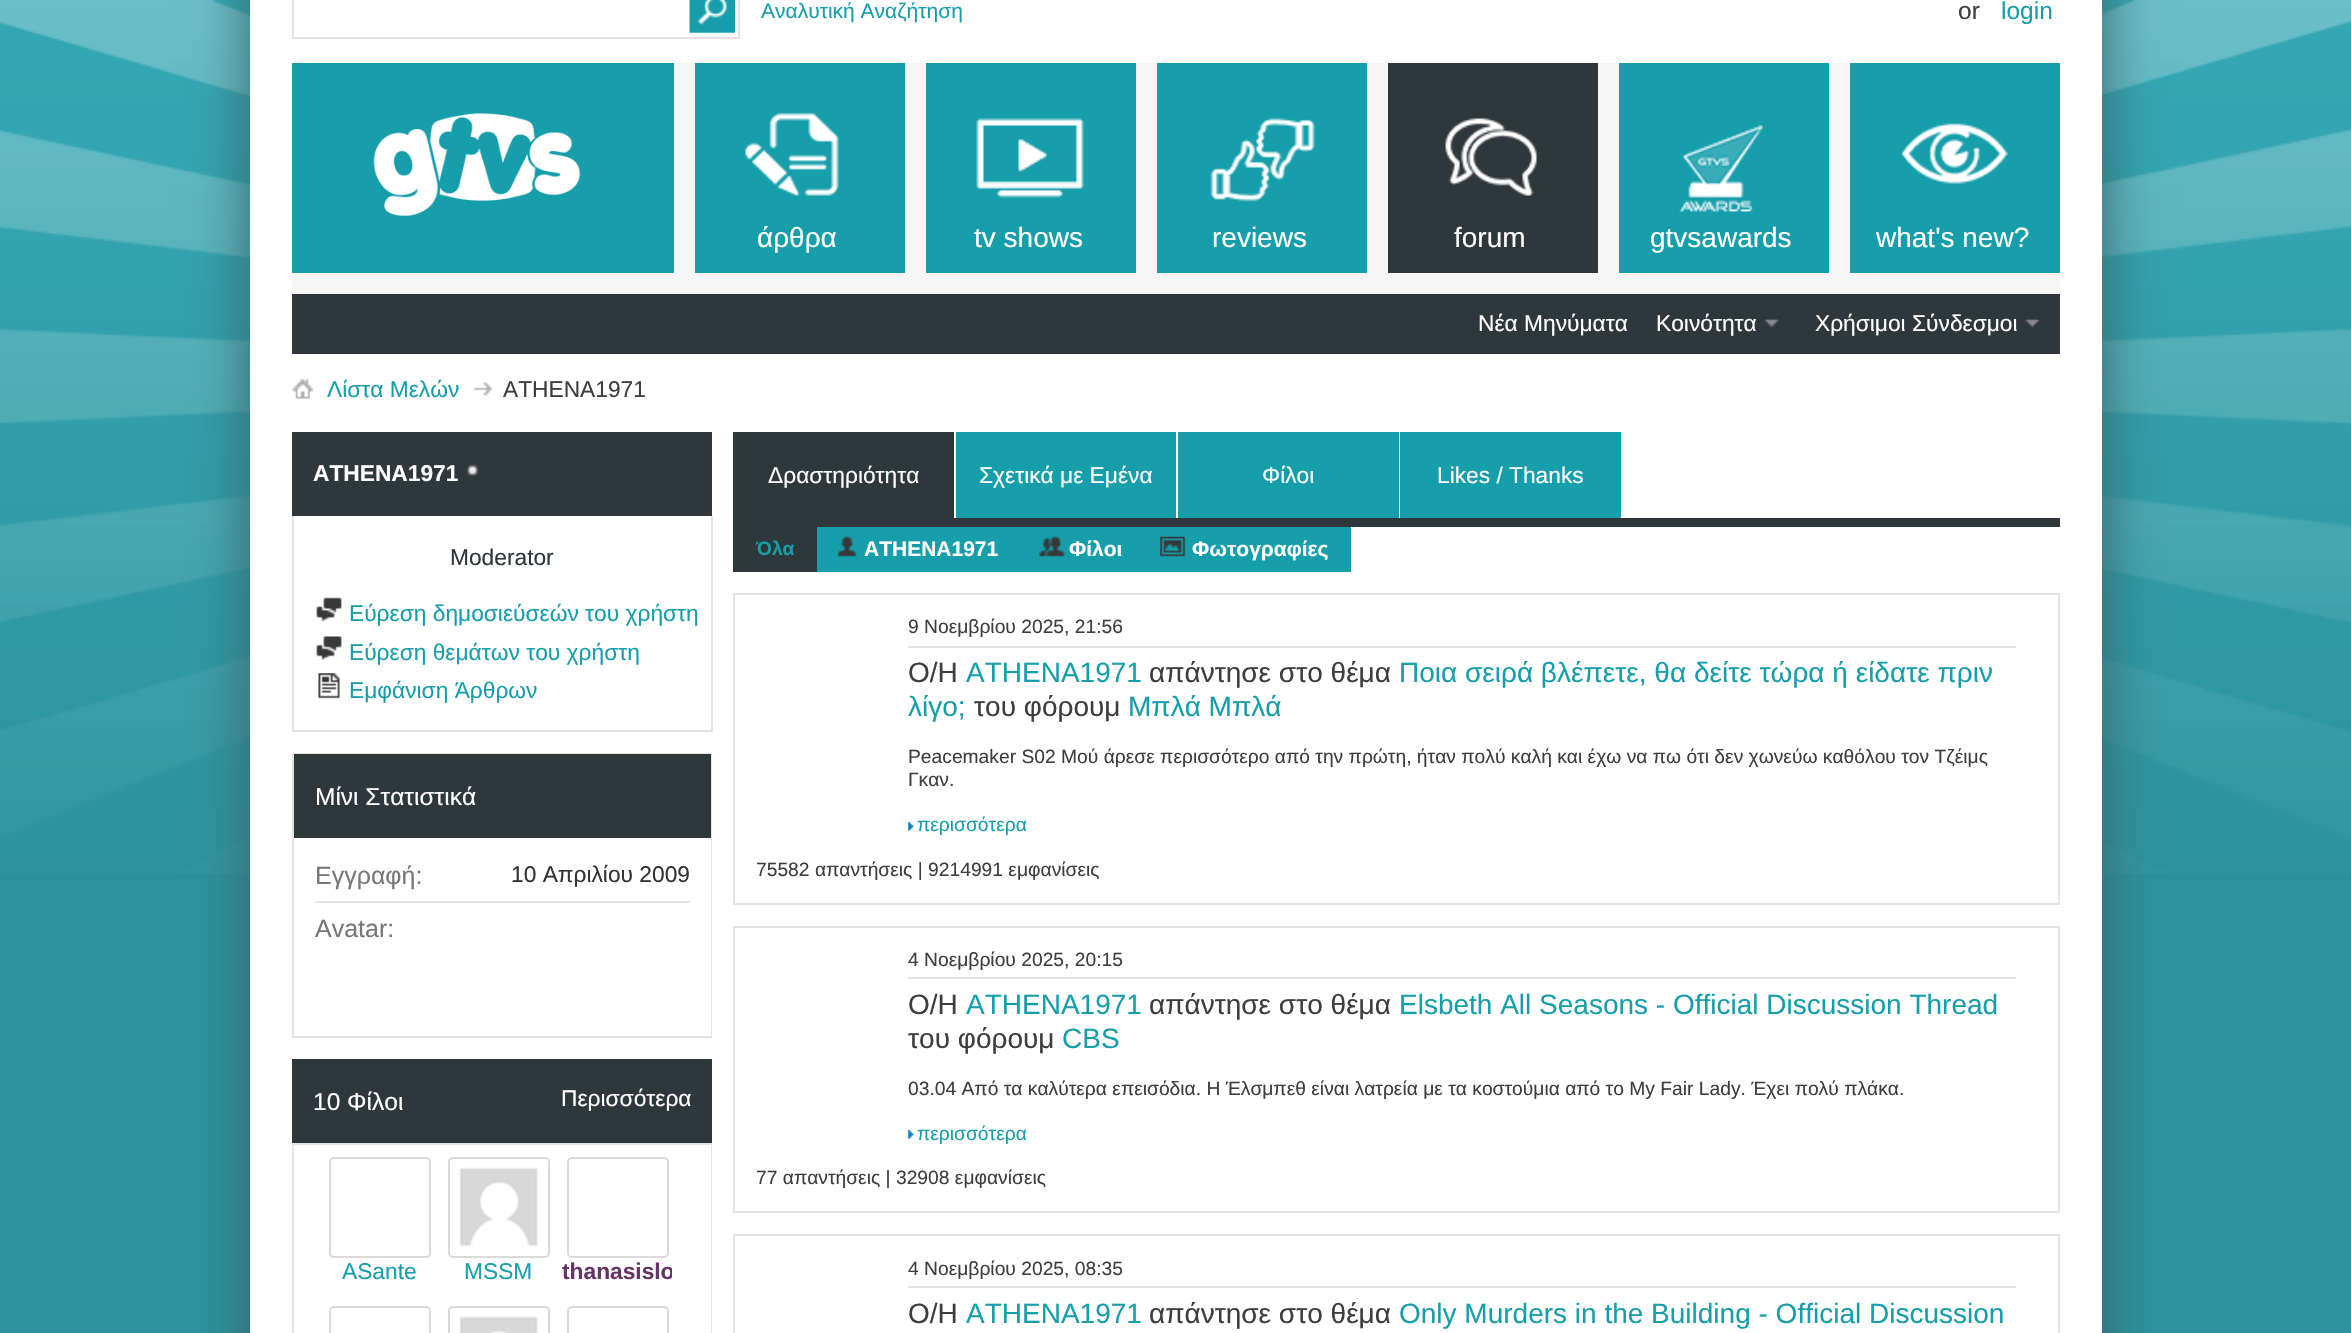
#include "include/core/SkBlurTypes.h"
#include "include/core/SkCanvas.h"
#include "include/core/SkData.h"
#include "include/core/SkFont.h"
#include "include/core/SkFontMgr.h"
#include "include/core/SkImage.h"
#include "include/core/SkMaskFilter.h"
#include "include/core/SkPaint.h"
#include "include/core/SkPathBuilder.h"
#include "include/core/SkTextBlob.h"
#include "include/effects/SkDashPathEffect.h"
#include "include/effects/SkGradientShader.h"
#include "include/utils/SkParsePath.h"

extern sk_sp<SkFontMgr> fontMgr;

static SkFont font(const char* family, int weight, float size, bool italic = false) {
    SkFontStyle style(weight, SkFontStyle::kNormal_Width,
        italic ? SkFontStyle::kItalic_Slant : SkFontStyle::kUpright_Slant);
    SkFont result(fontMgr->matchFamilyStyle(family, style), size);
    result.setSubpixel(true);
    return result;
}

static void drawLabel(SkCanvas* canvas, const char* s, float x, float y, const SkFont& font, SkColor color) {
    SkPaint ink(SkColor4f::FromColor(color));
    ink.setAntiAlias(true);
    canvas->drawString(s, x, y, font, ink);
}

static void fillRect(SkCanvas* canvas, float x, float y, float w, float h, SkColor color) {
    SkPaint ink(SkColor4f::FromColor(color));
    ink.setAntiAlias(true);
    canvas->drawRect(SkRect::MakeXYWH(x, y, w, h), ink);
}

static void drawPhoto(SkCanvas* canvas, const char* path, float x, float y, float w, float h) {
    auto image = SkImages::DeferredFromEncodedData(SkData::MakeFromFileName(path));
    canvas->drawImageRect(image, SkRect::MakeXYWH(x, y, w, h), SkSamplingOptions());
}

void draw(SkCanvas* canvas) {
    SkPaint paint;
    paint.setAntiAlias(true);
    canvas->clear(0xFF2D919C);
    drawPhoto(canvas, "assets/img1.png", 0, 0, 2351, 874);
    paint.setColor(0xFF386266);
    paint.setMaskFilter(SkMaskFilter::MakeBlur(kNormal_SkBlurStyle, 27));
    canvas->drawRect(SkRect::MakeXYWH(250, -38, 1852, 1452), paint);
    paint.setMaskFilter(nullptr);
    fillRect(canvas, 250, 0, 1852, 1333, 0xFFFFFFFF);
    paint.setStroke(true);
    paint.setStrokeWidth(2);
    paint.setColor(0xFFE4E4E4);
    canvas->drawRect(SkRect::MakeXYWH(293, -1, 446, 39), paint);
    drawPhoto(canvas, "assets/img2.png", 689, 0, 46, 33);
    SkFont font1 = font("Liberation Sans", 400, 21);
    drawLabel(canvas, "Αναλυτική Αναζήτηση", 761, 18, font1, 0xFF169EAB);
    SkFont font2 = font("Liberation Sans", 400, 24.5f);
    drawLabel(canvas, "or", 1958, 19, font2, 0xFF3E3E3E);
    drawLabel(canvas, "login", 2001, 19, font2, 0xFF169EAB);
    fillRect(canvas, 292, 63, 1768, 210, 0xFF169EAB);
    drawPhoto(canvas, "assets/img3.png", 373, 113, 208, 103);
    fillRect(canvas, 674, 63, 21, 210, 0xFFF6F6F6);
    drawPhoto(canvas, "assets/img4.png", 745, 112, 94, 84);
    SkFont font3 = font("Liberation Sans", 400, 28);
    drawLabel(canvas, "άρθρα", 757, 247, font3, 0xFFFFFFFF);
    fillRect(canvas, 905, 63, 21, 210, 0xFFF6F6F6);
    drawPhoto(canvas, "assets/img5.png", 976, 118, 108, 80);
    drawLabel(canvas, "tv shows", 974, 247, font3, 0xFFFFFFFF);
    fillRect(canvas, 1136, 63, 21, 210, 0xFFF6F6F6);
    drawPhoto(canvas, "assets/img6.png", 1210, 118, 105, 84);
    drawLabel(canvas, "reviews", 1212, 247, font3, 0xFFFFFFFF);
    fillRect(canvas, 1367, 63, 21, 210, 0xFFF6F6F6);
    fillRect(canvas, 1388, 63, 210, 210, 0xFF2E3739);
    drawPhoto(canvas, "assets/img7.png", 1445, 118, 92, 78);
    drawLabel(canvas, "forum", 1454, 247, font3, 0xFFFFFFFF);
    fillRect(canvas, 1598, 63, 21, 210, 0xFFF6F6F6);
    drawPhoto(canvas, "assets/img8.png", 1679, 125, 84, 87);
    drawLabel(canvas, "gtvsawards", 1650, 247, font3, 0xFFFFFFFF);
    fillRect(canvas, 1829, 63, 21, 210, 0xFFF6F6F6);
    drawPhoto(canvas, "assets/img9.png", 1901, 123, 107, 61);
    drawLabel(canvas, "what's new?", 1876, 247, font3, 0xFFFFFFFF);
    fillRect(canvas, 292, 294, 1768, 60, 0xFF2E3739);
    fillRect(canvas, 292, 273, 1768, 21, 0xFFF6F6F6);
    SkFont font4 = font("Liberation Sans", 400, 22.75f);
    drawLabel(canvas, "Νέα Μηνύματα", 1478, 331, font4, 0xFFFFFFFF);
    drawLabel(canvas, "Κοινότητα", 1656, 331, font4, 0xFFFFFFFF);
    drawPhoto(canvas, "assets/img10.png", 1764, 319, 15, 9);
    drawLabel(canvas, "Χρήσιμοι Σύνδεσμοι", 1815, 331, font4, 0xFFFFFFFF);
    drawPhoto(canvas, "assets/img11.png", 2024, 319, 16, 9);
    drawPhoto(canvas, "assets/img12.png", 292, 378, 22, 21);
    drawPhoto(canvas, "assets/img13.png", 474, 382, 18, 14);
    drawLabel(canvas, "Λίστα Μελών", 327, 397, font4, 0xFF169EAB);
    drawLabel(canvas, "ATHENA1971", 503, 397, font4, 0xFF3E3E3E);
    fillRect(canvas, 292, 432, 420, 84, 0xFF2E3739);
    SkFont font5 = font("Liberation Sans", 700, 22.75f);
    drawLabel(canvas, "ATHENA1971", 313, 481, font5, 0xFFFFFFFF);
    drawPhoto(canvas, "assets/img14.png", 467, 464, 12, 12);
    fillRect(canvas, 711, 516, 2, 216, 0xFFE4E4E4);
    fillRect(canvas, 292, 730, 420, 2, 0xFFE4E4E4);
    fillRect(canvas, 292, 516, 2, 216, 0xFFE4E4E4);
    drawLabel(canvas, "Moderator", 450, 565, font4, 0xFF2E3739);
    drawPhoto(canvas, "assets/img15.png", 316, 597, 26, 25);
    drawLabel(canvas, "Εύρεση δημοσιεύσεών του χρήστη", 349, 621, font4, 0xFF169EAB);
    drawPhoto(canvas, "assets/img16.png", 316, 636, 26, 24);
    drawLabel(canvas, "Εύρεση θεμάτων του χρήστη", 349, 660, font4, 0xFF169EAB);
    drawPhoto(canvas, "assets/img17.png", 318, 673, 22, 26);
    drawLabel(canvas, "Εμφάνιση Άρθρων", 349, 698, font4, 0xFF169EAB);
    canvas->drawRect(SkRect::MakeXYWH(293, 754, 418, 283), paint);
    fillRect(canvas, 294, 754, 417, 84, 0xFF2E3739);
    drawLabel(canvas, "Μίνι Στατιστικά", 315, 805, font2, 0xFFFFFFFF);
    fillRect(canvas, 710, 838, 1, 198, 0xFFFFFFFF);
    fillRect(canvas, 315, 901, 375, 2, 0xFFE4E4E4);
    SkFont font6 = font("Liberation Sans", 400, 25);
    drawLabel(canvas, "Εγγραφή:", 315, 884, font6, 0xFF777777);
    drawLabel(canvas, "10 Απριλίου 2009", 511, 882, font4, 0xFF333333);
    drawLabel(canvas, "Avatar:", 315, 937, font6, 0xFF777777);
    fillRect(canvas, 292, 1059, 420, 84, 0xFF2E3739);
    drawLabel(canvas, "10 Φίλοι", 313, 1110, font2, 0xFFFFFFFF);
    drawLabel(canvas, "Περισσότερα", 561, 1106, font4, 0xFFFFFFFF);
    canvas->drawRect(SkRect::MakeXYWH(293, 1144, 418, 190), paint);
    fillRect(canvas, 710, 1145, 1, 188, 0xFFFFFFFF);
    paint.setColor(0xFFDADADA);
    canvas->drawRoundRect(SkRect::MakeXYWH(330, 1158, 100, 99), 4, 4, paint);
    drawLabel(canvas, "ASante", 342, 1279, font4, 0xFF169EAB);
    canvas->drawRoundRect(SkRect::MakeXYWH(449, 1158, 100, 99), 4, 4, paint);
    drawPhoto(canvas, "assets/img18.png", 459, 1167, 79, 80);
    drawLabel(canvas, "MSSM", 464, 1279, font4, 0xFF169EAB);
    canvas->drawRoundRect(SkRect::MakeXYWH(568, 1158, 100, 99), 4, 4, paint);
    canvas->save();
    canvas->clipRect(SkRect::MakeXYWH(562, 1157, 110, 149));
    drawLabel(canvas, "thanasislo", 562, 1279, font5, 0xFF663366);
    canvas->restore();
    canvas->drawRoundRect(SkRect::MakeXYWH(330, 1307, 100, 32), 4, 4, paint);
    canvas->drawRoundRect(SkRect::MakeXYWH(449, 1307, 100, 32), 4, 4, paint);
    drawPhoto(canvas, "assets/img19.png", 459, 1316, 79, 17);
    canvas->drawRoundRect(SkRect::MakeXYWH(568, 1307, 100, 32), 4, 4, paint);
    fillRect(canvas, 735, 434, 217, 84, 0xFF2E3739);
    fillRect(canvas, 733, 432, 221, 2, 0xFF2E3739);
    fillRect(canvas, 952, 432, 2, 86, 0xFF2E3739);
    fillRect(canvas, 733, 432, 2, 86, 0xFF2E3739);
    drawLabel(canvas, "Δραστηριότητα", 768, 483, font4, 0xFFFFFFFF);
    fillRect(canvas, 958, 434, 216, 84, 0xFF169EAB);
    fillRect(canvas, 956, 432, 220, 2, 0xFF169EAB);
    fillRect(canvas, 1174, 432, 2, 86, 0xFF169EAB);
    fillRect(canvas, 956, 432, 2, 86, 0xFF169EAB);
    drawLabel(canvas, "Σχετικά με Εμένα", 979, 483, font4, 0xFFFFFFFF);
    fillRect(canvas, 1180, 434, 217, 84, 0xFF169EAB);
    fillRect(canvas, 1178, 432, 220, 2, 0xFF169EAB);
    fillRect(canvas, 1397, 432, 2, 86, 0xFF169EAB);
    fillRect(canvas, 1178, 432, 2, 86, 0xFF169EAB);
    drawLabel(canvas, "Φίλοι", 1262, 483, font4, 0xFFFFFFFF);
    fillRect(canvas, 1402, 434, 217, 84, 0xFF169EAB);
    fillRect(canvas, 1400, 432, 221, 2, 0xFF169EAB);
    fillRect(canvas, 1619, 432, 2, 86, 0xFF169EAB);
    fillRect(canvas, 1400, 432, 2, 86, 0xFF169EAB);
    drawLabel(canvas, "Likes / Thanks", 1437, 483, font4, 0xFFFFFFFF);
    fillRect(canvas, 733, 518, 1327, 9, 0xFF2E3739);
    fillRect(canvas, 733, 527, 84, 45, 0xFF2E3739);
    SkFont font7 = font("Liberation Sans", 700, 19.25f);
    drawLabel(canvas, "Όλα", 756, 555, font7, 0xFF169EAB);
    fillRect(canvas, 817, 527, 534, 45, 0xFF169EAB);
    drawPhoto(canvas, "assets/img20.png", 837, 536, 20, 21);
    SkFont font8 = font("Liberation Sans", 700, 21);
    drawLabel(canvas, "ATHENA1971", 864, 556, font8, 0xFFFFFFFF);
    drawPhoto(canvas, "assets/img21.png", 1039, 536, 26, 21);
    drawLabel(canvas, "Φίλοι", 1069, 556, font8, 0xFFFFFFFF);
    drawPhoto(canvas, "assets/img22.png", 1160, 536, 26, 21);
    drawLabel(canvas, "Φωτογραφίες", 1192, 556, font8, 0xFFFFFFFF);
    paint.setColor(0xFFE4E4E4);
    canvas->drawRect(SkRect::MakeXYWH(734, 594, 1325, 310), paint);
    fillRect(canvas, 908, 646, 1108, 2, 0xFFE4E4E4);
    SkFont font9 = font("Liberation Sans", 400, 19.25f);
    drawLabel(canvas, "9 Νοεμβρίου 2025, 21:56", 908, 633, font9, 0xFF3E3E3E);
    drawLabel(canvas, "Ο/Η", 908, 682, font3, 0xFF3E3E3E);
    drawLabel(canvas, "ATHENA1971", 966, 682, font3, 0xFF169EAB);
    drawLabel(canvas, "απάντησε στο θέμα", 1149, 682, font3, 0xFF3E3E3E);
    drawLabel(canvas, "Ποια σειρά βλέπετε, θα δείτε τώρα ή είδατε πριν", 1399, 682, font3, 0xFF169EAB);
    drawLabel(canvas, "λίγο;", 908, 716, font3, 0xFF169EAB);
    drawLabel(canvas, "του φόρουμ", 974, 716, font3, 0xFF3E3E3E);
    drawLabel(canvas, "Μπλά Μπλά", 1128, 716, font3, 0xFF169EAB);
    drawLabel(canvas, "Peacemaker S02 Μού άρεσε περισσότερο από την πρώτη, ήταν πολύ καλή και έχω να πω ότι δεν χωνεύω καθόλου τον Τζέιμς", 908, 763, font9, 0xFF3E3E3E);
    drawLabel(canvas, "Γκαν.", 908, 786, font9, 0xFF3E3E3E);
    drawPhoto(canvas, "assets/img23.png", 908, 822, 6, 9);
    drawLabel(canvas, "περισσότερα", 917, 831, font9, 0xFF169EAB);
    drawLabel(canvas, "75582 απαντήσεις | 9214991 εμφανίσεις", 756, 876, font9, 0xFF3E3E3E);
    canvas->drawRect(SkRect::MakeXYWH(734, 927, 1325, 285), paint);
    fillRect(canvas, 908, 977, 1108, 2, 0xFFE4E4E4);
    drawLabel(canvas, "4 Νοεμβρίου 2025, 20:15", 908, 966, font9, 0xFF3E3E3E);
    drawLabel(canvas, "Ο/Η", 908, 1014, font3, 0xFF3E3E3E);
    drawLabel(canvas, "ATHENA1971", 966, 1014, font3, 0xFF169EAB);
    drawLabel(canvas, "απάντησε στο θέμα", 1149, 1014, font3, 0xFF3E3E3E);
    drawLabel(canvas, "Elsbeth All Seasons - Official Discussion Thread", 1399, 1014, font3, 0xFF169EAB);
    drawLabel(canvas, "του φόρουμ", 908, 1048, font3, 0xFF3E3E3E);
    drawLabel(canvas, "CBS", 1062, 1048, font3, 0xFF169EAB);
    drawLabel(canvas, "03.04 Από τα καλύτερα επεισόδια. Η Έλσμπεθ είναι λατρεία με τα κοστούμια από το My Fair Lady. Έχει πολύ πλάκα.", 908, 1095, font9, 0xFF3E3E3E);
    drawPhoto(canvas, "assets/img23.png", 908, 1130, 6, 9);
    drawLabel(canvas, "περισσότερα", 917, 1140, font9, 0xFF169EAB);
    drawLabel(canvas, "77 απαντήσεις | 32908 εμφανίσεις", 756, 1184, font9, 0xFF3E3E3E);
    canvas->drawRect(SkRect::MakeXYWH(734, 1235, 1325, 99), paint);
    fillRect(canvas, 908, 1286, 1108, 2, 0xFFE4E4E4);
    drawLabel(canvas, "4 Νοεμβρίου 2025, 08:35", 908, 1275, font9, 0xFF3E3E3E);
    drawLabel(canvas, "Ο/Η", 908, 1323, font3, 0xFF3E3E3E);
    drawLabel(canvas, "ATHENA1971", 966, 1323, font3, 0xFF169EAB);
    drawLabel(canvas, "απάντησε στο θέμα", 1149, 1323, font3, 0xFF3E3E3E);
    drawLabel(canvas, "Only Murders in the Building - Official Discussion", 1399, 1323, font3, 0xFF169EAB);
}
